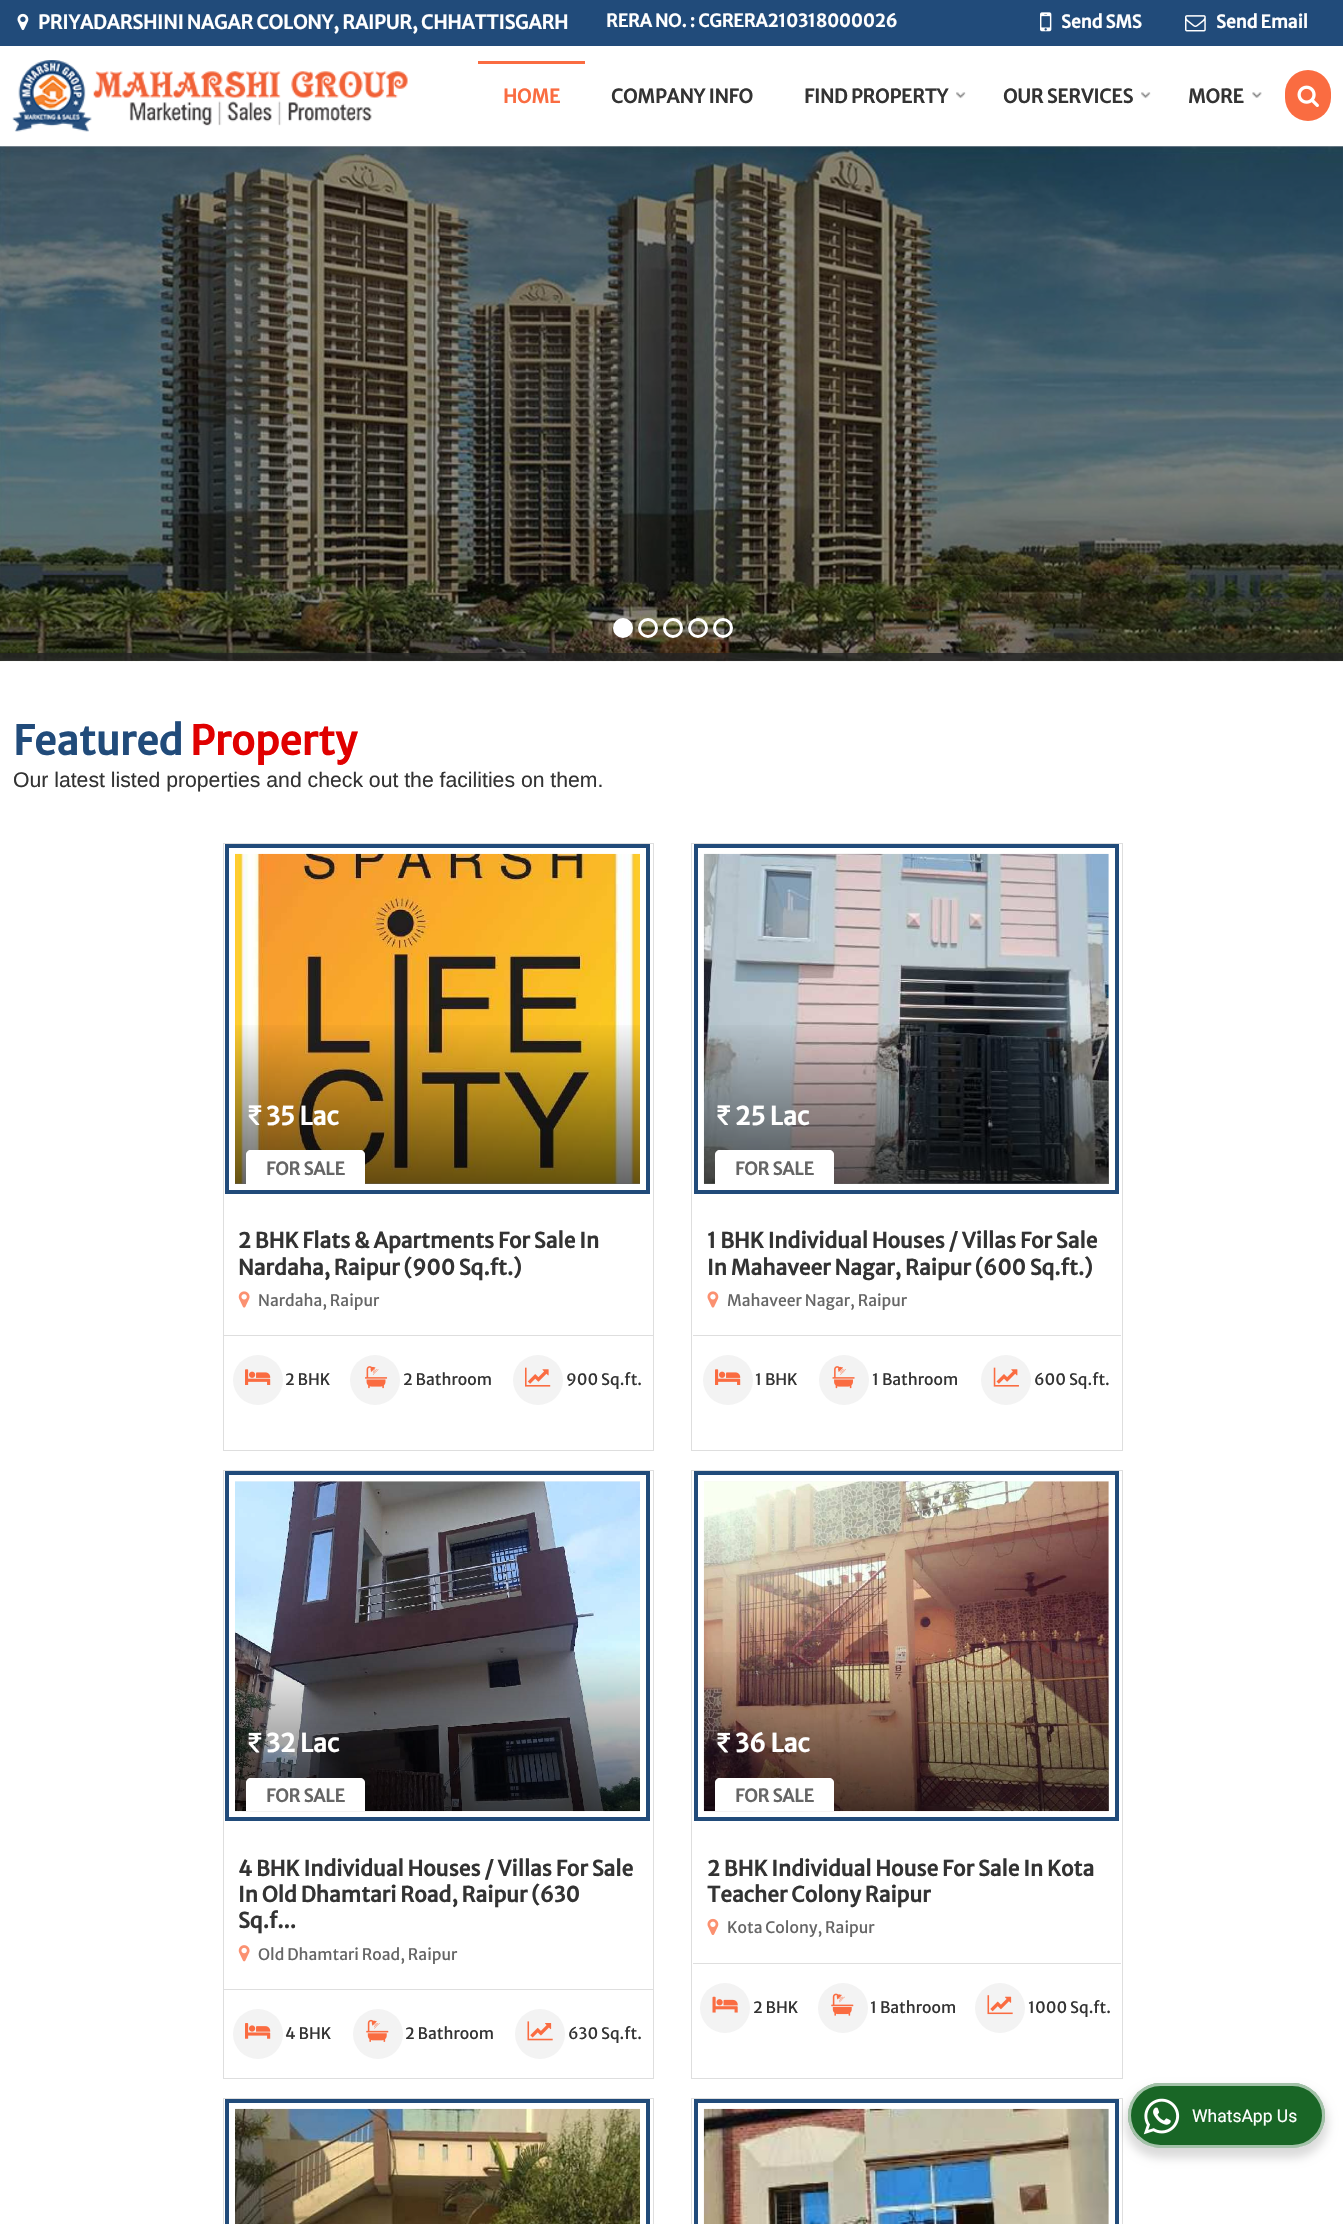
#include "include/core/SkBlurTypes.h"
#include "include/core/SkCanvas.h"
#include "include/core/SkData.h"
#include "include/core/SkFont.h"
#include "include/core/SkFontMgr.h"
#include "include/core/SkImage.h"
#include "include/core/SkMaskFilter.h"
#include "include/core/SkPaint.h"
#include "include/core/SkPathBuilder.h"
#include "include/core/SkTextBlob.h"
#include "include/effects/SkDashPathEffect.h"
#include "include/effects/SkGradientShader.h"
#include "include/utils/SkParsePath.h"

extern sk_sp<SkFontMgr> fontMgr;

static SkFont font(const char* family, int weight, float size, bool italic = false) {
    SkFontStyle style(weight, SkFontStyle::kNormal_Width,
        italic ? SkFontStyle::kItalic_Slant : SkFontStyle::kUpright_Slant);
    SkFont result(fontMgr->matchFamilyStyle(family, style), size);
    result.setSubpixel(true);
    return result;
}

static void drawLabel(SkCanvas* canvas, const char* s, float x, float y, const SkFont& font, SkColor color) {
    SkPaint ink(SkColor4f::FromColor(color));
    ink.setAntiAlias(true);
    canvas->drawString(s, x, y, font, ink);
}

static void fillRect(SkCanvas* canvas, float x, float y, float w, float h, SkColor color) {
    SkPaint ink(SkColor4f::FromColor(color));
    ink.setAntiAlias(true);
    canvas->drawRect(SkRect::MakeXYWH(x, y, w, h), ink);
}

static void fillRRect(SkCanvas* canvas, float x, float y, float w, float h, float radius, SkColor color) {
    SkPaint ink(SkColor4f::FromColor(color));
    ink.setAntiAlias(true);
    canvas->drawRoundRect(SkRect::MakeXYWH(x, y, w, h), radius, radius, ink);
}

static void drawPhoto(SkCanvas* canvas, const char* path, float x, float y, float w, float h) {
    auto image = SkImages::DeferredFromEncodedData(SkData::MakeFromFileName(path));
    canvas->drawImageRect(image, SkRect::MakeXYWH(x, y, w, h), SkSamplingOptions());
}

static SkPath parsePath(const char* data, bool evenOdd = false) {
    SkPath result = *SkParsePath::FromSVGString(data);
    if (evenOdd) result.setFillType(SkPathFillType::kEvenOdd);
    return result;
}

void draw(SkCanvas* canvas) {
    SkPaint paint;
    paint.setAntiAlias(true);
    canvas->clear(0xFFFFFFFF);
    fillRect(canvas, 0, 0, 1343, 46, 0xFF214B7A);
    drawPhoto(canvas, "assets/img1.png", 17, 13, 12, 18);
    SkFont font1 = font("Merriweather Sans", 700, 18.9f);
    drawLabel(canvas, "PRIYADARSHINI NAGAR COLONY, RAIPUR, CHHATTISGARH", 38, 29, font1, 0xFFFFFFFF);
    SkFont font2 = font("Merriweather Sans", 700, 17.5f);
    drawLabel(canvas, "RERA NO. : CGRERA210318000026", 606, 27, font2, 0xFFFFFFFF);
    drawPhoto(canvas, "assets/img2.png", 1040, 12, 12, 20);
    drawLabel(canvas, "Send SMS", 1061, 28, font2, 0xFFFFFFFF);
    drawPhoto(canvas, "assets/img3.png", 1185, 15, 21, 17);
    drawLabel(canvas, "Send Email", 1216, 28, font2, 0xFFFFFFFF);
    drawPhoto(canvas, "assets/img4.png", 12, 60, 396, 72);
    fillRect(canvas, 478, 61, 107, 3, 0xFFFA6C41);
    SkFont font3 = font("Merriweather Sans", 700, 18.75f);
    drawLabel(canvas, "HOME", 503, 103, font3, 0xFFFA6C41);
    drawLabel(canvas, "COMPANY INFO", 611, 103, font3, 0xFF333333);
    drawLabel(canvas, "FIND PROPERTY", 804, 103, font3, 0xFF333333);
    drawPhoto(canvas, "assets/img5.png", 956, 92, 10, 7);
    drawLabel(canvas, "OUR SERVICES", 1003, 103, font3, 0xFF333333);
    drawPhoto(canvas, "assets/img5.png", 1141, 92, 10, 7);
    drawLabel(canvas, "MORE", 1188, 103, font3, 0xFF333333);
    drawPhoto(canvas, "assets/img6.png", 1252, 92, 10, 6);
    fillRRect(canvas, 1285, 70, 46, 51, 23, 0xFFFA6C41);
    drawPhoto(canvas, "assets/img7.png", 1297, 85, 22, 22);
    drawPhoto(canvas, "assets/img8.png", 0, 146, 1343, 516);
    fillRect(canvas, 0, 653, 1343, 8, 0xCC222222);
    paint.setColor(0xFFFFFFFF);
    canvas->drawCircle(623, 628, 8.5f, paint);
    paint.setStroke(true);
    paint.setStrokeWidth(3);
    canvas->drawCircle(623, 628, 8.5f, paint);
    canvas->drawCircle(648, 628, 8.5f, paint);
    canvas->drawCircle(673, 628, 8.5f, paint);
    canvas->drawCircle(698, 628, 8.5f, paint);
    canvas->drawCircle(723, 628, 8.5f, paint);
    SkFont font4 = font("Merriweather Sans", 700, 40);
    drawLabel(canvas, "Featured", 13, 755, font4, 0xFF214B7A);
    drawLabel(canvas, "Property", 190, 755, font4, 0xFFE00000);
    SkFont font5 = font("Liberation Sans", 400, 21.2f);
    drawLabel(canvas, "Our latest listed properties and check out the facilities on them.", 13, 787, font5, 0xFF333333);
    paint.setStrokeWidth(1);
    paint.setColor(0xFFDEDEDE);
    canvas->drawRect(SkRect::MakeXYWH(223.5f, 843.5f, 430, 607), paint);
    paint.setStrokeWidth(4);
    paint.setColor(0xFF214B7A);
    canvas->drawRect(SkRect::MakeXYWH(227, 846, 421, 346), paint);
    fillRect(canvas, 235, 1183, 405, 1, 0xFFF8F8F8);
    drawPhoto(canvas, "assets/img9.png", 235, 853, 405, 331);
    paint.setStroke(false);
    {
        const SkColor colors[] = {0x00000000, 0x99000000};
        const float stops[] = {0, 1};
        const SkPoint ends[] = {{438, 1019}, {438, 1184}};
        paint.setShader(SkGradientShader::MakeLinear(ends, colors, stops, 2, SkTileMode::kClamp));
        paint.setAlpha(255);
    }
    canvas->drawRect(SkRect::MakeXYWH(235, 1025, 405, 159), paint);
    drawPhoto(canvas, "assets/img10.png", 248, 1105, 14, 20);
    SkFont font6 = font("Merriweather Sans", 700, 25);
    drawLabel(canvas, "35 Lac", 266, 1125, font6, 0xFFFFFFFF);
    paint.setShader(nullptr);
    paint.setColor(0xFFFFFFFF);
    canvas->drawPath(parsePath("M251 1150H360C363 1150 365 1152 365 1155V1184H246V1155C246 1152 248 1150 251 1150Z"), paint);
    paint.setStroke(true);
    paint.setStrokeWidth(1);
    paint.setColor(0xB3FFFFFF);
    canvas->drawPath(parsePath("M251 1150.5H360C362.5 1150.5 364.5 1152.5 364.5 1155V1183.5H246.5V1155C246.5 1152.5 248.5 1150.5 251 1150.5Z"), paint);
    drawLabel(canvas, "FOR SALE", 266, 1175, font2, 0xFF666666);
    SkFont font7 = font("Merriweather Sans", 700, 21);
    drawLabel(canvas, "2 BHK Flats & Apartments For Sale In", 238, 1248, font7, 0xFF333333);
    drawLabel(canvas, "Nardaha, Raipur (900 Sq.ft.)", 238, 1275, font7, 0xFF333333);
    drawPhoto(canvas, "assets/img11.png", 238, 1291, 12, 17);
    SkFont font8 = font("Merriweather Sans", 400, 15.75f);
    drawLabel(canvas, "Nardaha, Raipur", 258, 1306, font8, 0xFF666666);
    fillRect(canvas, 224, 1335, 429, 1, 0xFFDEDEDE);
    paint.setStroke(false);
    paint.setColor(0xFFF3F3F3);
    canvas->drawCircle(258, 1380, 25, paint);
    drawPhoto(canvas, "assets/img12.png", 245, 1369, 26, 16);
    drawLabel(canvas, "2 BHK", 285, 1385, font8, 0xFF333333);
    canvas->drawCircle(375, 1380, 25, paint);
    drawPhoto(canvas, "assets/img13.png", 365, 1366, 23, 23);
    drawLabel(canvas, "2 Bathroom", 403, 1385, font8, 0xFF333333);
    canvas->drawCircle(538, 1380, 25, paint);
    drawPhoto(canvas, "assets/img14.png", 525, 1367, 26, 20);
    drawLabel(canvas, "900 Sq.ft.", 566, 1385, font8, 0xFF333333);
    paint.setStroke(true);
    paint.setColor(0xFFDEDEDE);
    canvas->drawRect(SkRect::MakeXYWH(691.5f, 843.5f, 431, 607), paint);
    paint.setStrokeWidth(4);
    paint.setColor(0xFF214B7A);
    canvas->drawRect(SkRect::MakeXYWH(696, 846, 421, 346), paint);
    fillRect(canvas, 704, 854, 405, 330, 0xFFF8F8F8);
    drawPhoto(canvas, "assets/img15.png", 703, 853, 406, 331);
    paint.setStroke(false);
    {
        const SkColor colors[] = {0x00000000, 0x99000000};
        const float stops[] = {0, 1};
        const SkPoint ends[] = {{906, 1019}, {906, 1184}};
        paint.setShader(SkGradientShader::MakeLinear(ends, colors, stops, 2, SkTileMode::kClamp));
        paint.setAlpha(255);
    }
    canvas->drawRect(SkRect::MakeXYWH(704, 1025, 405, 159), paint);
    drawPhoto(canvas, "assets/img16.png", 717, 1105, 13, 20);
    drawLabel(canvas, "25 Lac", 735, 1125, font6, 0xFFFFFFFF);
    paint.setShader(nullptr);
    paint.setColor(0xFFFFFFFF);
    canvas->drawPath(parsePath("M720 1150H829C832 1150 834 1152 834 1155V1184H715V1155C715 1152 717 1150 720 1150Z"), paint);
    paint.setStroke(true);
    paint.setStrokeWidth(1);
    paint.setColor(0xB3FFFFFF);
    canvas->drawPath(parsePath("M720 1150.5H829C831.5 1150.5 833.5 1152.5 833.5 1155V1183.5H715.5V1155C715.5 1152.5 717.5 1150.5 720 1150.5Z"), paint);
    drawLabel(canvas, "FOR SALE", 735, 1175, font2, 0xFF666666);
    drawLabel(canvas, "1 BHK Individual Houses / Villas For Sale", 707, 1248, font7, 0xFF333333);
    drawLabel(canvas, "In Mahaveer Nagar, Raipur (600 Sq.ft.)", 707, 1275, font7, 0xFF333333);
    drawPhoto(canvas, "assets/img17.png", 707, 1291, 12, 17);
    drawLabel(canvas, "Mahaveer Nagar, Raipur", 727, 1306, font8, 0xFF666666);
    fillRect(canvas, 693, 1335, 428, 1, 0xFFDEDEDE);
    paint.setStroke(false);
    paint.setColor(0xFFF3F3F3);
    canvas->drawCircle(728, 1380, 25, paint);
    drawPhoto(canvas, "assets/img12.png", 715, 1369, 26, 16);
    drawLabel(canvas, "1 BHK", 755, 1385, font8, 0xFF333333);
    canvas->drawCircle(844, 1380, 25, paint);
    drawPhoto(canvas, "assets/img18.png", 832, 1366, 23, 23);
    drawLabel(canvas, "1 Bathroom", 872, 1385, font8, 0xFF333333);
    canvas->drawCircle(1006, 1380, 25, paint);
    drawPhoto(canvas, "assets/img19.png", 993, 1367, 26, 20);
    drawLabel(canvas, "600 Sq.ft.", 1034, 1385, font8, 0xFF333333);
    paint.setStroke(true);
    paint.setColor(0xFFDEDEDE);
    canvas->drawRect(SkRect::MakeXYWH(223.5f, 1470.5f, 430, 608), paint);
    paint.setStrokeWidth(4);
    paint.setColor(0xFF214B7A);
    canvas->drawRect(SkRect::MakeXYWH(227, 1473, 421, 346), paint);
    fillRect(canvas, 235, 1481, 405, 1, 0xFFF8F8F8);
    drawPhoto(canvas, "assets/img20.png", 235, 1481, 405, 331);
    drawPhoto(canvas, "assets/img21.png", 248, 1732, 14, 21);
    drawLabel(canvas, "32 Lac", 266, 1752, font6, 0xFFFFFFFF);
    paint.setStroke(false);
    paint.setColor(0xFFFFFFFF);
    canvas->drawPath(parsePath("M251 1778H360C363 1778 365 1780 365 1783V1811H246V1783C246 1780 248 1778 251 1778Z"), paint);
    paint.setStroke(true);
    paint.setStrokeWidth(1);
    paint.setColor(0xB3FFFFFF);
    canvas->drawPath(parsePath("M251 1778.5H360C362.5 1778.5 364.5 1780.5 364.5 1783V1810.5H246.5V1783C246.5 1780.5 248.5 1778.5 251 1778.5Z"), paint);
    drawLabel(canvas, "FOR SALE", 266, 1802, font2, 0xFF666666);
    drawLabel(canvas, "4 BHK Individual Houses / Villas For Sale", 238, 1876, font7, 0xFF333333);
    drawLabel(canvas, "In Old Dhamtari Road, Raipur (630", 238, 1902, font7, 0xFF333333);
    drawLabel(canvas, "Sq.f...", 238, 1928, font7, 0xFF333333);
    drawPhoto(canvas, "assets/img22.png", 238, 1945, 12, 17);
    drawLabel(canvas, "Old Dhamtari Road, Raipur", 258, 1960, font8, 0xFF666666);
    fillRect(canvas, 224, 1989, 429, 1, 0xFFDEDEDE);
    paint.setStroke(false);
    paint.setColor(0xFFF3F3F3);
    canvas->drawCircle(258, 2034, 25, paint);
    drawPhoto(canvas, "assets/img23.png", 245, 2023, 26, 16);
    drawLabel(canvas, "4 BHK", 285, 2039, font8, 0xFF333333);
    canvas->drawCircle(378, 2034, 25, paint);
    drawPhoto(canvas, "assets/img24.png", 366, 2019, 23, 23);
    drawLabel(canvas, "2 Bathroom", 405, 2039, font8, 0xFF333333);
    canvas->drawCircle(540, 2034, 25, paint);
    drawPhoto(canvas, "assets/img25.png", 527, 2021, 26, 20);
    drawLabel(canvas, "630 Sq.ft.", 568, 2039, font8, 0xFF333333);
    paint.setStroke(true);
    paint.setColor(0xFFDEDEDE);
    canvas->drawRect(SkRect::MakeXYWH(691.5f, 1470.5f, 431, 608), paint);
    paint.setStrokeWidth(4);
    paint.setColor(0xFF214B7A);
    canvas->drawRect(SkRect::MakeXYWH(696, 1473, 421, 346), paint);
    fillRect(canvas, 704, 1481, 405, 330, 0xFFF8F8F8);
    drawPhoto(canvas, "assets/img26.png", 703, 1481, 406, 331);
    paint.setStroke(false);
    {
        const SkColor colors[] = {0x00000000, 0x99000000};
        const float stops[] = {0, 1};
        const SkPoint ends[] = {{906, 1646}, {906, 1811}};
        paint.setShader(SkGradientShader::MakeLinear(ends, colors, stops, 2, SkTileMode::kClamp));
        paint.setAlpha(255);
    }
    canvas->drawRect(SkRect::MakeXYWH(704, 1652, 405, 159), paint);
    drawPhoto(canvas, "assets/img27.png", 717, 1732, 14, 21);
    drawLabel(canvas, "36 Lac", 735, 1752, font6, 0xFFFFFFFF);
    paint.setShader(nullptr);
    paint.setColor(0xFFFFFFFF);
    canvas->drawPath(parsePath("M720 1778H829C832 1778 834 1780 834 1783V1811H715V1783C715 1780 717 1778 720 1778Z"), paint);
    paint.setStroke(true);
    paint.setStrokeWidth(1);
    paint.setColor(0xB3FFFFFF);
    canvas->drawPath(parsePath("M720 1778.5H829C831.5 1778.5 833.5 1780.5 833.5 1783V1810.5H715.5V1783C715.5 1780.5 717.5 1778.5 720 1778.5Z"), paint);
    drawLabel(canvas, "FOR SALE", 735, 1802, font2, 0xFF666666);
    drawLabel(canvas, "2 BHK Individual House For Sale In Kota", 707, 1876, font7, 0xFF333333);
    drawLabel(canvas, "Teacher Colony Raipur", 707, 1902, font7, 0xFF333333);
    drawPhoto(canvas, "assets/img28.png", 707, 1918, 12, 17);
    drawLabel(canvas, "Kota Colony, Raipur", 727, 1933, font8, 0xFF666666);
    fillRect(canvas, 693, 1963, 428, 1, 0xFFDEDEDE);
    paint.setStroke(false);
    paint.setColor(0xFFF3F3F3);
    canvas->drawCircle(725, 2008, 25, paint);
    drawPhoto(canvas, "assets/img29.png", 712, 1996, 26, 17);
    drawLabel(canvas, "2 BHK", 753, 2013, font8, 0xFF333333);
    canvas->drawCircle(843, 2008, 25, paint);
    drawPhoto(canvas, "assets/img30.png", 831, 1993, 23, 23);
    drawLabel(canvas, "1 Bathroom", 870, 2013, font8, 0xFF333333);
    canvas->drawCircle(1000, 2008, 25, paint);
    drawPhoto(canvas, "assets/img31.png", 987, 1995, 26, 20);
    drawLabel(canvas, "1000 Sq.ft.", 1028, 2013, font8, 0xFF333333);
    paint.setStroke(true);
    paint.setColor(0xFFDEDEDE);
    canvas->drawRect(SkRect::MakeXYWH(223.5f, 2098.5f, 430, 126), paint);
    paint.setStrokeWidth(4);
    paint.setColor(0xFF214B7A);
    canvas->drawRect(SkRect::MakeXYWH(227, 2101, 421, 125), paint);
    drawPhoto(canvas, "assets/img32.png", 235, 2108, 405, 116);
    paint.setStrokeWidth(1);
    paint.setColor(0xFFDEDEDE);
    canvas->drawRect(SkRect::MakeXYWH(691.5f, 2098.5f, 431, 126), paint);
    paint.setStrokeWidth(4);
    paint.setColor(0xFF214B7A);
    canvas->drawRect(SkRect::MakeXYWH(696, 2101, 421, 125), paint);
    fillRect(canvas, 1108, 2109, 1, 115, 0xFFF7F7F7);
    drawPhoto(canvas, "assets/img33.png", 703, 2108, 406, 116);
    paint.setStroke(false);
    paint.setColor(0x24000000);
    paint.setMaskFilter(SkMaskFilter::MakeBlur(kNormal_SkBlurStyle, 5));
    canvas->drawRoundRect(SkRect::MakeXYWH(1125, 2088, 203, 70), 35, 35, paint);
    paint.setMaskFilter(nullptr);
    fillRRect(canvas, 1128, 2083, 197, 65, 32.5f, 0xFF196626);
    paint.setStroke(true);
    paint.setStrokeWidth(3);
    paint.setColor(0x99FFFFFF);
    canvas->drawRoundRect(SkRect::MakeXYWH(1129.5f, 2084.5f, 194, 62), 31, 31, paint);
    drawPhoto(canvas, "assets/img34.png", 1143, 2098, 37, 37);
    SkFont font9 = font("Roboto", 400, 17.5f);
    drawLabel(canvas, "WhatsApp Us", 1192, 2122, font9, 0xFFFFFFFF);
}
